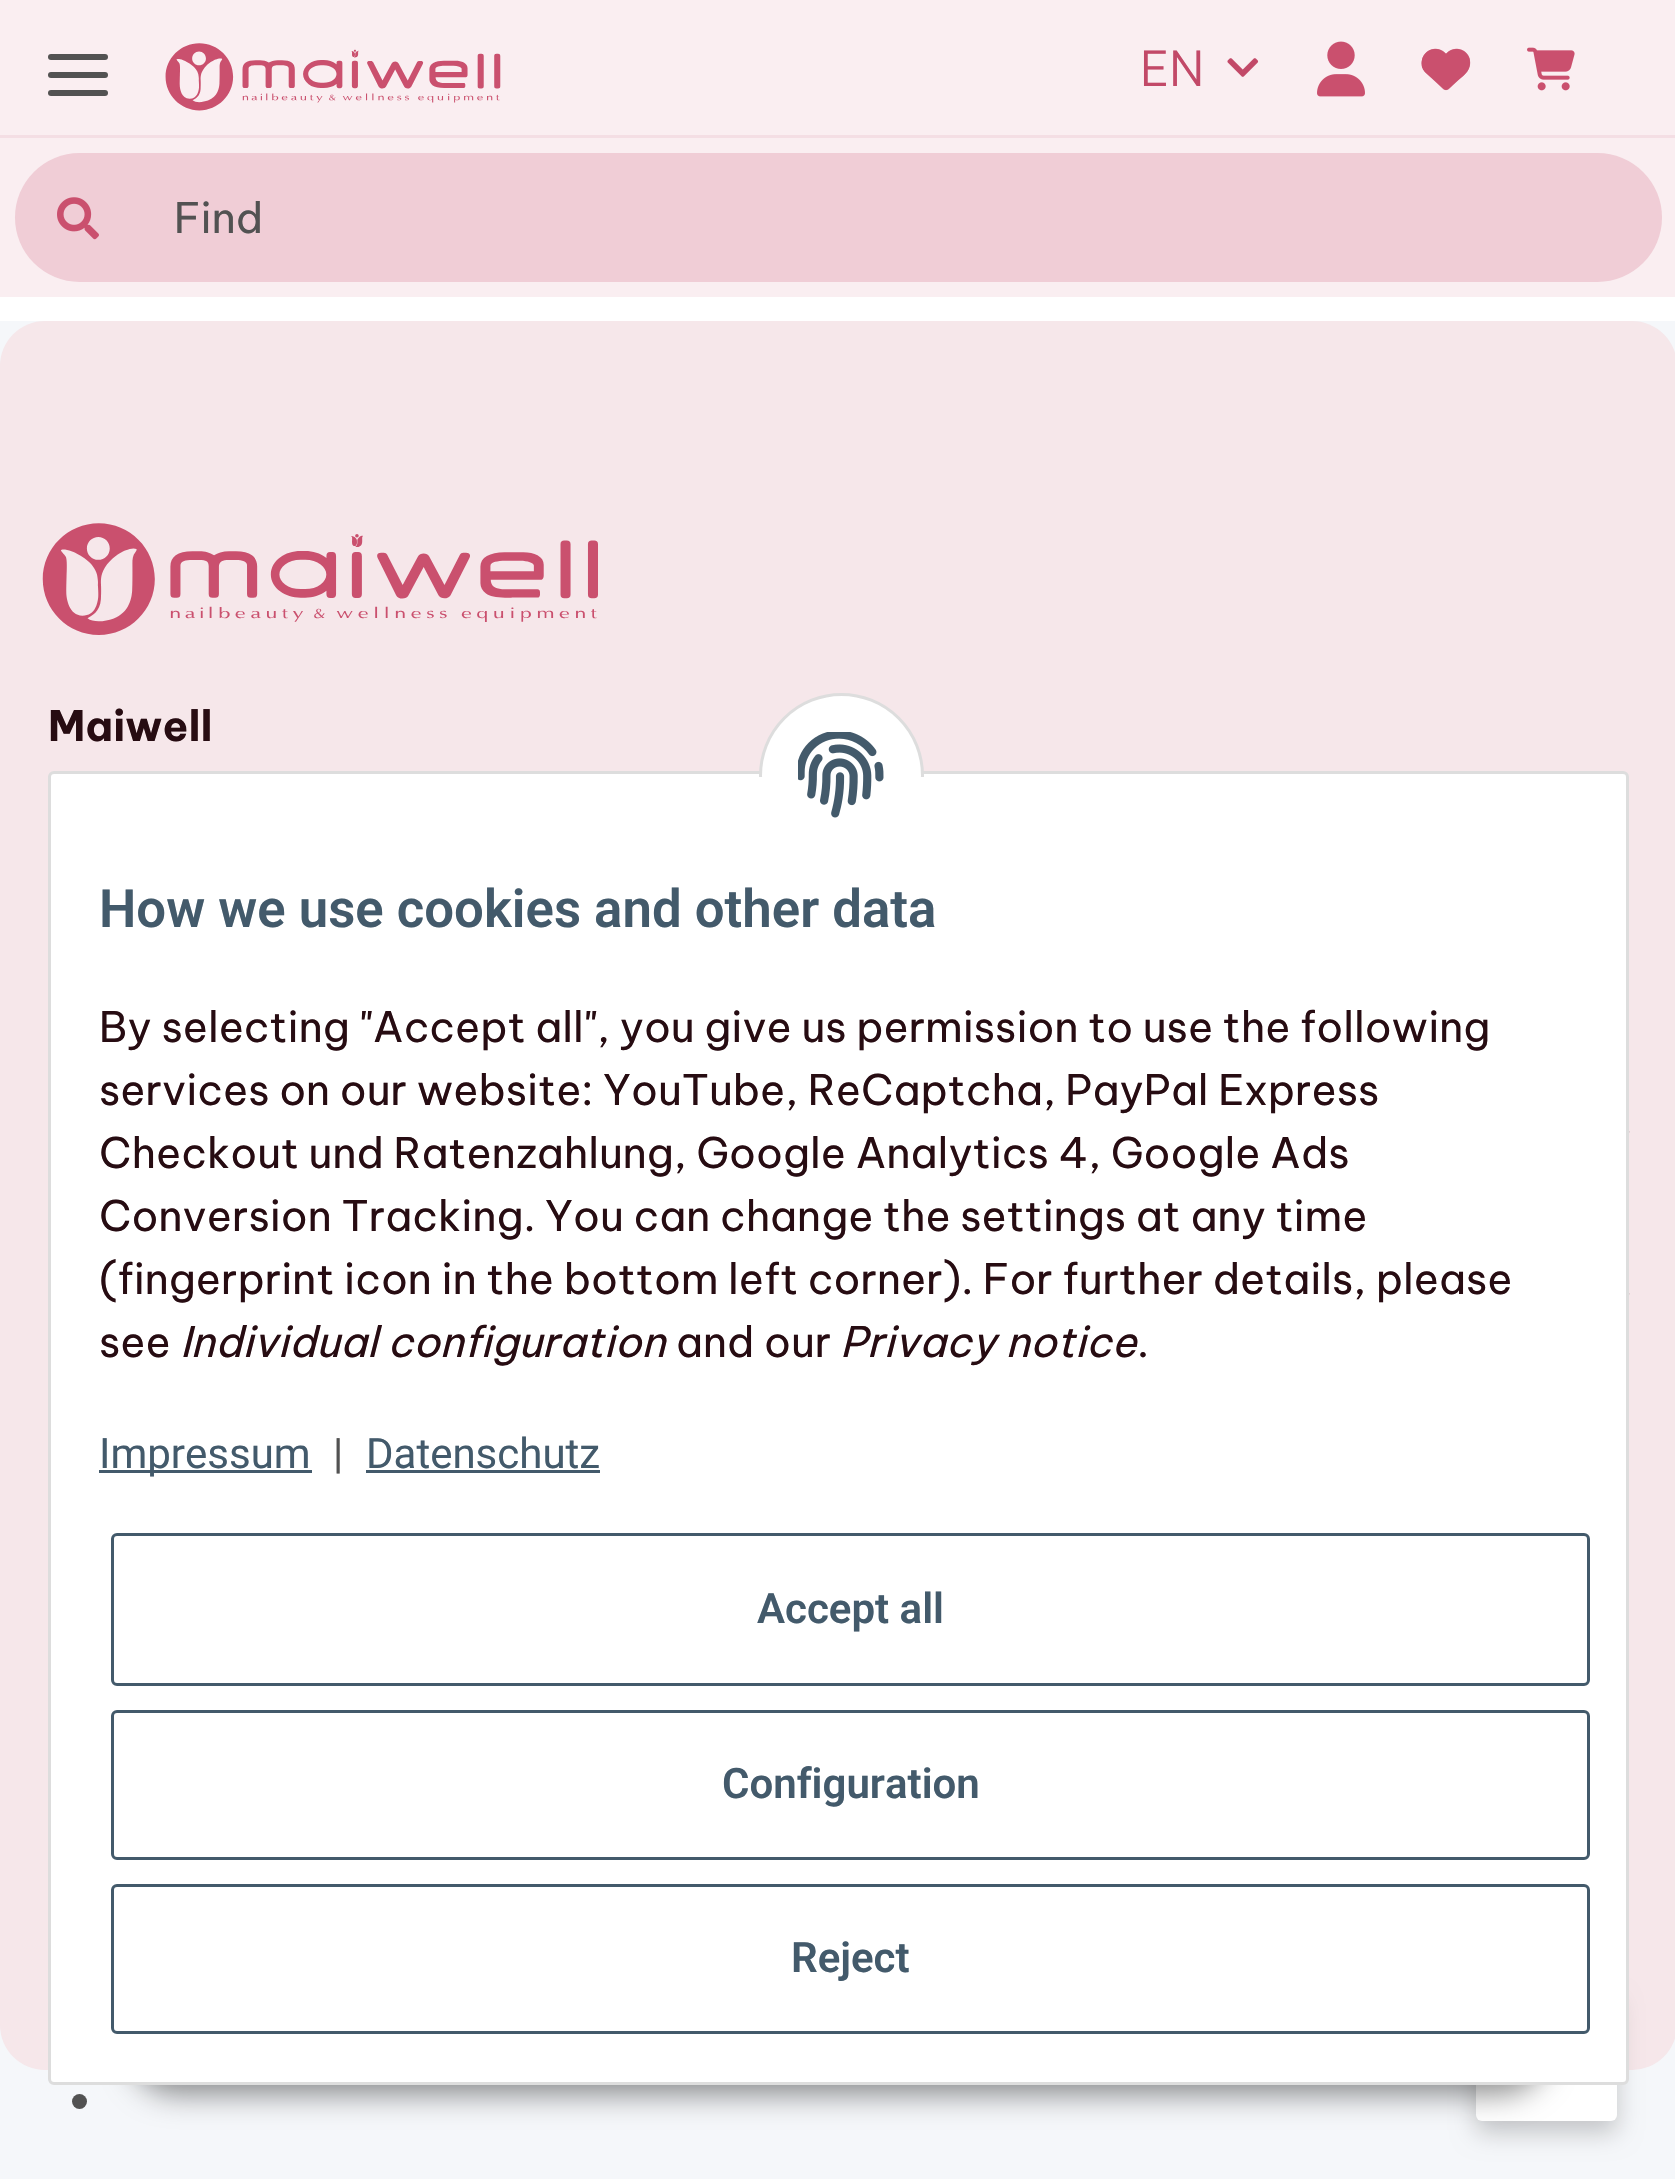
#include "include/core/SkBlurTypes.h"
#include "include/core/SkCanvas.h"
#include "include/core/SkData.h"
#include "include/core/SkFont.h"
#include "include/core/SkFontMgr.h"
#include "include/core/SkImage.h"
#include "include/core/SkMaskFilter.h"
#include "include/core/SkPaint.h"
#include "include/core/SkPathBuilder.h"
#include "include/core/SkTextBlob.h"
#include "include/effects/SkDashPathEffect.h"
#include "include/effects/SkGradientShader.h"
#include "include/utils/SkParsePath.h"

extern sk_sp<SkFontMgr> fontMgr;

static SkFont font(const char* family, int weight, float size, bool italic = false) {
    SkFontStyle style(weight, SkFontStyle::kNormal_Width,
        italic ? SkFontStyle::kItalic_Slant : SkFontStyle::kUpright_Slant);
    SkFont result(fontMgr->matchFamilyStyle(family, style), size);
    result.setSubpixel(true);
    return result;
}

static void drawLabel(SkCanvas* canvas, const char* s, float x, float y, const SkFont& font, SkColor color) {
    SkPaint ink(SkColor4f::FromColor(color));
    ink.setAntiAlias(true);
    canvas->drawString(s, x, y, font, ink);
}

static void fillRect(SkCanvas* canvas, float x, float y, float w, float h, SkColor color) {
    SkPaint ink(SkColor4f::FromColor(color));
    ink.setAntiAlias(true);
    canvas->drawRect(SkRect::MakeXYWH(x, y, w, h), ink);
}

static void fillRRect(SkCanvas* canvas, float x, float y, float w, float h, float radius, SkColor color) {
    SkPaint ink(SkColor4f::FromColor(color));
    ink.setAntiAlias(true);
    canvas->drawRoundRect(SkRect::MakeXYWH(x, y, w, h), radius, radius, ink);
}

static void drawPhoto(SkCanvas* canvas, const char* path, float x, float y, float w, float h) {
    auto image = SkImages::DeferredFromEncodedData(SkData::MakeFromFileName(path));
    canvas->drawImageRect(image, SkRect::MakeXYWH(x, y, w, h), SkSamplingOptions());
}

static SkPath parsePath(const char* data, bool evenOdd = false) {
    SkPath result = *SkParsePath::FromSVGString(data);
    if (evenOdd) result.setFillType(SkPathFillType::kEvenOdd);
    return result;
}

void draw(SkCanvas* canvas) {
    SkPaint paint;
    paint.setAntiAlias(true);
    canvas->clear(0xFFF5F7FA);
    fillRect(canvas, 0, 0, 1675, 297, 0xFFFAEEF1);
    fillRRect(canvas, 48, 72, 60, 6, 3, 0xFF525252);
    fillRRect(canvas, 48, 54, 60, 6, 3, 0xFF525252);
    fillRRect(canvas, 48, 90, 60, 6, 3, 0xFF525252);
    drawPhoto(canvas, "assets/img1.png", 165, 43, 336, 68);
    SkFont font1 = font("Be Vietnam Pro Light", 300, 48);
    drawLabel(canvas, "EN", 1140, 86, font1, 0xFFC24968);
    drawPhoto(canvas, "assets/img2.png", 1227, 58, 32, 19);
    drawPhoto(canvas, "assets/img3.png", 1317, 41, 48, 56);
    drawPhoto(canvas, "assets/img4.png", 1421, 48, 50, 43);
    paint.setColor(0xFFCA506E);
    canvas->drawPath(parsePath("M1426 73L1441 86C1446 91 1446 91 1451 86L1457 81C1461 78 1466 74 1468 70C1476 55 1458 42 1446 54C1431 39 1413 61 1426 73Z"), paint);
    drawPhoto(canvas, "assets/img5.png", 1527, 47, 48, 44);
    fillRect(canvas, 0, 135, 1675, 3, 0xFFF4DEE4);
    fillRRect(canvas, 15, 153, 1647, 129, 64.5f, 0xFFF0CDD6);
    drawPhoto(canvas, "assets/img6.png", 57, 197, 42, 43);
    SkFont font2 = font("Be Vietnam Pro", 400, 42);
    drawLabel(canvas, "Find", 174, 233, font2, 0xFF525252);
    fillRect(canvas, 0, 297, 1675, 24, 0xFFFFFFFF);
    fillRRect(canvas, 0, 321, 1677, 1749, 45, 0xFFF6E7EA);
    drawPhoto(canvas, "assets/img7.png", 42, 523, 556, 112);
    SkFont font3 = font("Be Vietnam Pro", 700, 42);
    drawLabel(canvas, "Maiwell", 48, 741, font3, 0xFF270C12);
    drawPhoto(canvas, "assets/img8.png", 1629, 1131, 1, 2);
    drawPhoto(canvas, "assets/img8.png", 1629, 1293, 1, 2);
    paint.setColor(0x33000000);
    paint.setMaskFilter(SkMaskFilter::MakeBlur(kNormal_SkBlurStyle, 12));
    canvas->drawRoundRect(SkRect::MakeXYWH(1476, 2001, 141, 132), 6, 6, paint);
    paint.setMaskFilter(nullptr);
    fillRRect(canvas, 1476, 1989, 141, 132, 6, 0xFFFFFFFF);
    paint.setColor(0xFF525252);
    canvas->drawCircle(79.5f, 2101.5f, 7.5f, paint);
    paint.setColor(0x73000000);
    paint.setMaskFilter(SkMaskFilter::MakeBlur(kNormal_SkBlurStyle, 15));
    canvas->drawRoundRect(SkRect::MakeXYWH(129, 1998, 1419, 96), 48, 48, paint);
    paint.setMaskFilter(nullptr);
    paint.setColor(0xFFFFFFFF);
    canvas->drawRoundRect(SkRect::MakeXYWH(49.5f, 772.5f, 1578, 1311), 4.5f, 4.5f, paint);
    paint.setStroke(true);
    paint.setStrokeWidth(3);
    paint.setColor(0xFFDDDDDD);
    canvas->drawRoundRect(SkRect::MakeXYWH(49.5f, 772.5f, 1578, 1311), 4.5f, 4.5f, paint);
    paint.setStroke(false);
    paint.setColor(0xFFFFFFFF);
    canvas->drawCircle(841.5f, 775.5f, 81, paint);
    paint.setStroke(true);
    paint.setColor(0xFFDDDDDD);
    canvas->drawCircle(841.5f, 775.5f, 81, paint);
    fillRect(canvas, 759, 777, 165, 81, 0xFFFFFFFF);
    drawPhoto(canvas, "assets/img9.png", 798, 732, 86, 86);
    SkFont font4 = font("Roboto", 600, 52.75f);
    drawLabel(canvas, "How we use cookies and other data", 99, 927, font4, 0xFF435A6B);
    drawLabel(canvas, "By selecting \"Accept all\", you give us permission to use the following", 99, 1042, font2, 0xFF270C12);
    drawLabel(canvas, "services on our website: YouTube, ReCaptcha, PayPal Express", 99, 1105, font2, 0xFF270C12);
    drawLabel(canvas, "Checkout und Ratenzahlung, Google Analytics 4, Google Ads", 99, 1168, font2, 0xFF270C12);
    drawLabel(canvas, "Conversion Tracking. You can change the settings at any time", 99, 1231, font2, 0xFF270C12);
    drawLabel(canvas, "(fingerprint icon in the bottom left corner). For further details, please", 99, 1294, font2, 0xFF270C12);
    drawLabel(canvas, "see", 99, 1357, font2, 0xFF270C12);
    SkFont font5 = font("Be Vietnam Pro", 400, 42, true);
    drawLabel(canvas, "Individual configuration", 180, 1357, font5, 0xFF270C12);
    drawLabel(canvas, "and our", 676, 1357, font2, 0xFF270C12);
    drawLabel(canvas, "Privacy notice", 840, 1357, font5, 0xFF270C12);
    drawLabel(canvas, ".", 1137, 1357, font2, 0xFF270C12);
    fillRect(canvas, 99, 1470, 213, 3, 0xFF435A6B);
    SkFont font6 = font("Roboto", 400, 42);
    drawLabel(canvas, "Impressum", 99, 1468, font6, 0xFF435A6B);
    drawLabel(canvas, "|", 333, 1468, font6, 0xFF525252);
    drawLabel(canvas, "Datenschutz", 366, 1468, font6, 0xFF435A6B);
    fillRect(canvas, 366, 1470, 234, 3, 0xFF435A6B);
    paint.setColor(0xFF435A6B);
    canvas->drawRoundRect(SkRect::MakeXYWH(112.5f, 1534.5f, 1476, 150), 4.5f, 4.5f, paint);
    SkFont font7 = font("Roboto", 600, 42);
    drawLabel(canvas, "Accept all", 757, 1623, font7, 0xFF435A6B);
    canvas->drawRoundRect(SkRect::MakeXYWH(112.5f, 1711.5f, 1476, 147), 4.5f, 4.5f, paint);
    drawLabel(canvas, "Configuration", 722, 1798, font7, 0xFF435A6B);
    canvas->drawRoundRect(SkRect::MakeXYWH(112.5f, 1885.5f, 1476, 147), 4.5f, 4.5f, paint);
    drawLabel(canvas, "Reject", 791, 1972, font7, 0xFF435A6B);
}
